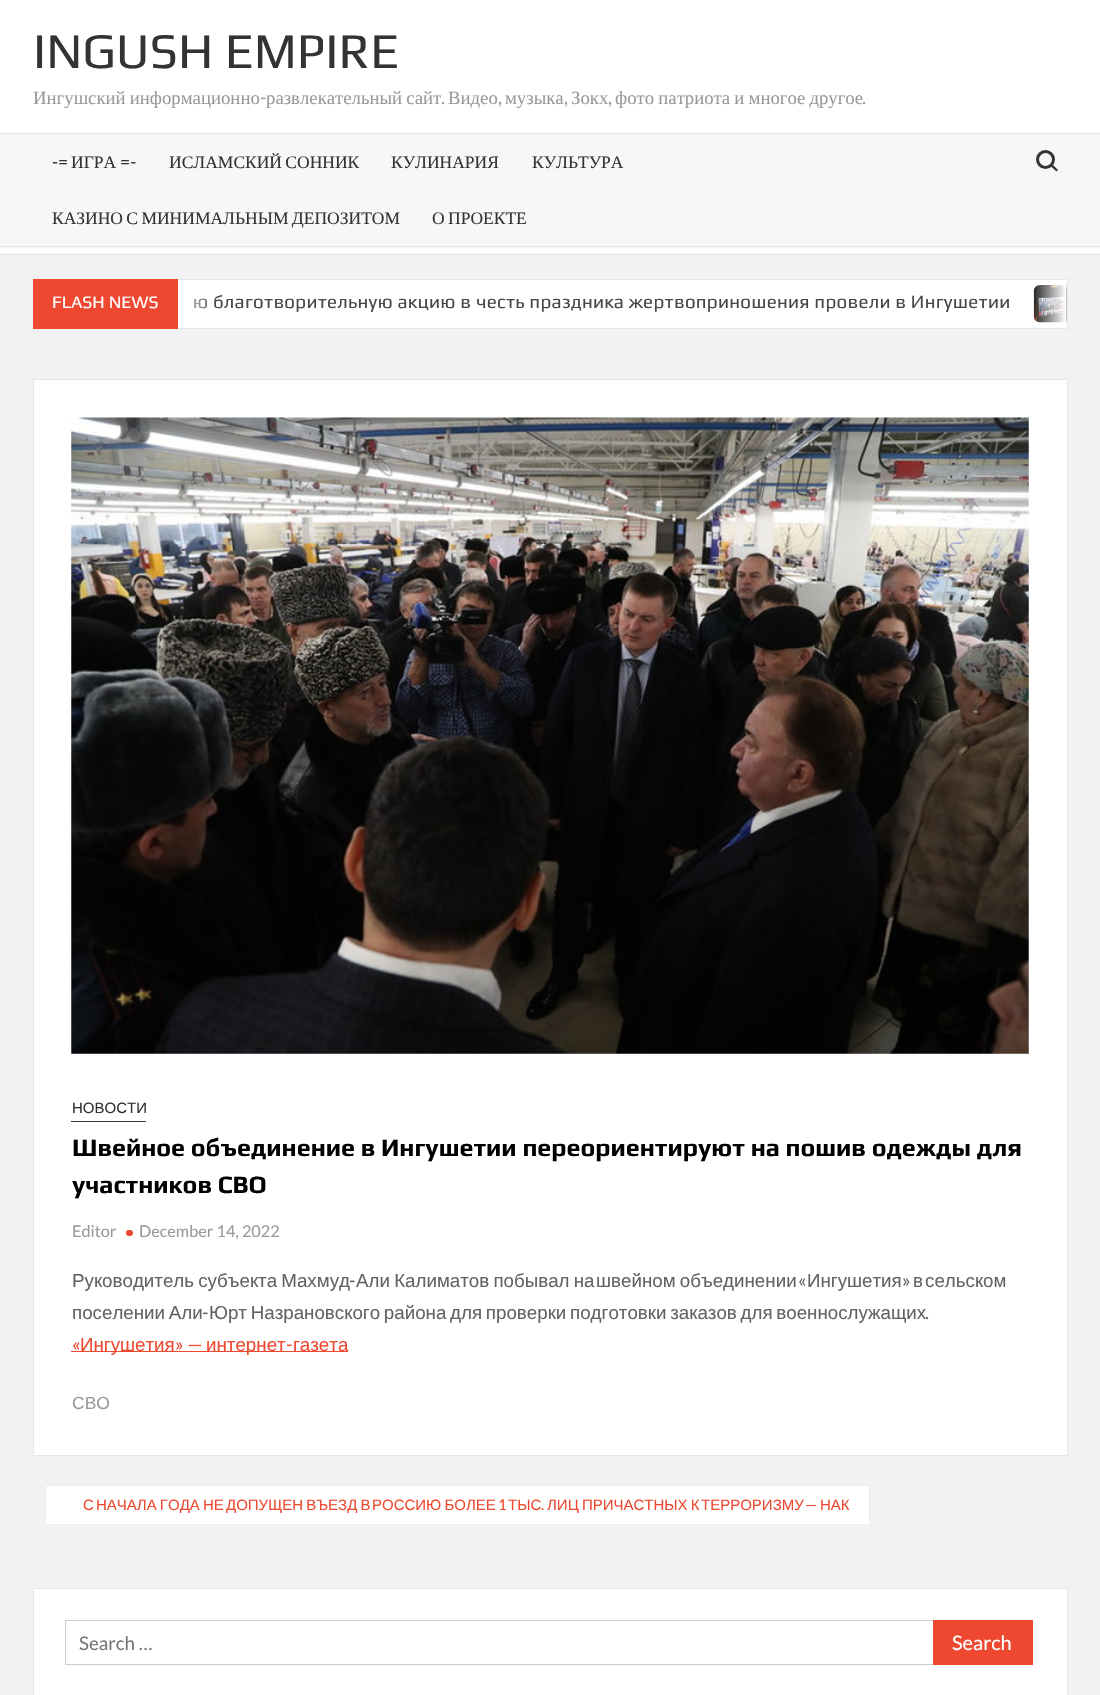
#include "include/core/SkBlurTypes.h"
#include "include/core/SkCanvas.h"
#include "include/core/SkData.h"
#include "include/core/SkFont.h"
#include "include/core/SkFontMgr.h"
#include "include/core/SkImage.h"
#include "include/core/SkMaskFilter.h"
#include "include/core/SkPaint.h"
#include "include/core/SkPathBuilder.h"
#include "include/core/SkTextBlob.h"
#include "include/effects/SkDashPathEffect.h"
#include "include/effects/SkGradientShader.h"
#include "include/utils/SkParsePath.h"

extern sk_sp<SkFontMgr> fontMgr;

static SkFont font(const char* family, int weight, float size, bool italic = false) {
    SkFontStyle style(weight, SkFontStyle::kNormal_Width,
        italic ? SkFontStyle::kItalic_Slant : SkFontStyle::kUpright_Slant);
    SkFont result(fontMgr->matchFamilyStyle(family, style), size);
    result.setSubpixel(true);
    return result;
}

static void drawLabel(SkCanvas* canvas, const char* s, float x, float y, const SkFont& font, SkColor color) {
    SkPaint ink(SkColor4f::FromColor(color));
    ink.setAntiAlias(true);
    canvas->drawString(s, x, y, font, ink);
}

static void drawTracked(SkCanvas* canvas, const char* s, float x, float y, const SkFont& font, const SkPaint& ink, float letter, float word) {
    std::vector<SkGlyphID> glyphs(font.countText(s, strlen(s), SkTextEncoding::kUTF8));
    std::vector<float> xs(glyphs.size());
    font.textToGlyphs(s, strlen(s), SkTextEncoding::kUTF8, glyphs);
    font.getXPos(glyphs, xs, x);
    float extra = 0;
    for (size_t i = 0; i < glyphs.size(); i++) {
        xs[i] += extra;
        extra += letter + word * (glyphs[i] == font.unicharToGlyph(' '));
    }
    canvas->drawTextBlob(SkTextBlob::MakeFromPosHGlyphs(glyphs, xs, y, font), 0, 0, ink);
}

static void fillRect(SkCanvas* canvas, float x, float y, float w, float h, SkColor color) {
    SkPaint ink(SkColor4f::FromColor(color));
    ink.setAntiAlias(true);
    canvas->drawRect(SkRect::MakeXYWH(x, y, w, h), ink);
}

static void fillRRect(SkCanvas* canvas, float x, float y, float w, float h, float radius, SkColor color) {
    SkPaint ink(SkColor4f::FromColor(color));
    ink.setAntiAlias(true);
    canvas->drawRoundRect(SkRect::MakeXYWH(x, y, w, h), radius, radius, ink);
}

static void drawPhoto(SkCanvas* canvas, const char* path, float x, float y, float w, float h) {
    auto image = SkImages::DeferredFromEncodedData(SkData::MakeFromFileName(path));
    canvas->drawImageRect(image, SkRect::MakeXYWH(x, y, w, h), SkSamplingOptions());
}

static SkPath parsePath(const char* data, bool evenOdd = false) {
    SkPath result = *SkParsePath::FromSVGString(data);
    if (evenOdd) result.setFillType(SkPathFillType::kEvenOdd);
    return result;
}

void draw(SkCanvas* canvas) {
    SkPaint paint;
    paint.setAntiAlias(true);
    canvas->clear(0xFFF2F2F2);
    fillRect(canvas, 0, 0, 1100, 133, 0xFFFFFFFF);
    SkFont font1 = font("Play", 400, 50);
    drawLabel(canvas, "INGUSH EMPIRE", 33, 68, font1, 0xFF333333);
    SkFont font2 = font("Liberation Serif", 400, 18.75f);
    paint.setColor(0xFF999999);
    drawTracked(canvas, "Ингушский информационно", 33, 104, font2, paint, 0, -0.5f);
    SkFont font3 = font("Lato", 400, 18.75f);
    drawLabel(canvas, "-", 260, 104, font3, 0xFF999999);
    drawTracked(canvas, "развлекательный сайт", 266, 104, font2, paint, 0, -0.5f);
    drawLabel(canvas, "Видео", 448, 104, font2, 0xFF999999);
    drawLabel(canvas, "музыка", 505, 104, font2, 0xFF999999);
    drawLabel(canvas, "Зокх", 571, 104, font2, 0xFF999999);
    drawTracked(canvas, "фото патриота и многое другое", 615, 104, font2, paint, 0, -0.5f);
    drawLabel(canvas, ".", 441, 104, font3, 0xFF999999);
    drawLabel(canvas, ",", 498, 104, font3, 0xFF999999);
    drawLabel(canvas, ",", 564, 104, font3, 0xFF999999);
    drawLabel(canvas, ",", 608, 104, font3, 0xFF999999);
    drawLabel(canvas, ".", 862, 104, font3, 0xFF999999);
    fillRect(canvas, 0, 254, 1100, 1, 0xFFE4E4E4);
    fillRect(canvas, 0, 134, 1100, 114, 0xFFF7F7F7);
    fillRect(canvas, 0, 248, 1100, 6, 0xFFFFFFFF);
    fillRect(canvas, 0, 133, 1100, 1, 0xFFE4E4E4);
    fillRect(canvas, 0, 246, 1100, 1, 0xFFE4E4E4);
    SkFont font4 = font("Lato", 400, 17.5f);
    drawLabel(canvas, "-=", 52, 168, font4, 0xFF333333);
    SkFont font5 = font("Liberation Serif", 400, 17.5f);
    drawLabel(canvas, "ИГРА", 71, 168, font5, 0xFF333333);
    drawLabel(canvas, "=-", 120, 168, font4, 0xFF333333);
    paint.setColor(0xFF333333);
    drawTracked(canvas, "ИСЛАМСКИЙ СОННИК", 169, 168, font5, paint, 0, -1);
    drawLabel(canvas, "КУЛИНАРИЯ", 391, 168, font5, 0xFF333333);
    drawLabel(canvas, "КУЛЬТУРА", 532, 168, font5, 0xFF333333);
    drawTracked(canvas, "КАЗИНО С МИНИМАЛЬНЫМ ДЕПОЗИТОМ", 52, 224, font5, paint, 0, -1);
    drawTracked(canvas, "О ПРОЕКТЕ", 432, 224, font5, paint, 0, -1);
    paint.setStroke(true);
    paint.setStrokeWidth(3);
    canvas->drawCircle(1045.5f, 159.5f, 8, paint);
    paint.setStroke(false);
    canvas->drawPath(parsePath("M1052.5 164.5L1058 170L1056.5 171.5L1051 166.5Z"), paint);
    fillRect(canvas, 178, 280, 889, 48, 0xFFFFFFFF);
    paint.setStroke(true);
    paint.setStrokeWidth(1);
    paint.setColor(0xFFE7E7E7);
    canvas->drawRect(SkRect::MakeXYWH(33.5f, 279.5f, 1034, 49), paint);
    fillRect(canvas, 33, 279, 145, 50, 0xFFEE4930);
    SkFont font6 = font("Play", 400, 17.5f);
    drawLabel(canvas, "FLASH NEWS", 52, 308, font6, 0xFFFFFFFF);
    SkFont font7 = font("Play", 400, 18.75f);
    paint.setStroke(false);
    paint.setColor(0xFF474747);
    drawTracked(canvas, "ю благотворительную акцию в честь праздника жертвоприношения провели в Ингушетии", 193, 308, font7, paint, 0.25f, 0);
    {
        const SkColor colors[] = {0xFFFFFFFF, 0x00FFFFFF};
        const float stops[] = {0, 1};
        const SkPoint ends[] = {{178, 304}, {215, 304}};
        paint.setShader(SkGradientShader::MakeLinear(ends, colors, stops, 2, SkTileMode::kClamp));
        paint.setAlpha(255);
    }
    canvas->drawRect(SkRect::MakeXYWH(195, 298, 13, 11), paint);
    drawPhoto(canvas, "assets/img1.png", 1033, 285, 34, 38);
    {
        const SkColor colors[] = {0x00FFFFFF, 0xFFFFFFFF};
        const float stops[] = {0, 1};
        const SkPoint ends[] = {{1029, 304}, {1066, 304}};
        paint.setShader(SkGradientShader::MakeLinear(ends, colors, stops, 2, SkTileMode::kClamp));
        paint.setAlpha(255);
    }
    canvas->drawRect(SkRect::MakeXYWH(1034, 285, 32, 38), paint);
    paint.setShader(nullptr);
    paint.setColor(0xFFFFFFFF);
    canvas->drawRect(SkRect::MakeXYWH(33.5f, 379.5f, 1034, 1076), paint);
    paint.setStroke(true);
    paint.setColor(0xFFE6E6E6);
    canvas->drawRect(SkRect::MakeXYWH(33.5f, 379.5f, 1034, 1076), paint);
    drawPhoto(canvas, "assets/img2.png", 71, 417, 958, 637);
    fillRect(canvas, 71, 1121, 75, 1, 0xFF333333);
    SkFont font8 = font("Liberation Sans", 400, 15);
    drawLabel(canvas, "НОВОСТИ", 72, 1113, font8, 0xFF333333);
    SkFont font9 = font("Play", 700, 25);
    drawLabel(canvas, "Швейное объединение в Ингушетии переориентируют на пошив одежды для", 72, 1156, font9, 0xFF000000);
    drawLabel(canvas, "участников СВО", 72, 1193, font9, 0xFF000000);
    SkFont font10 = font("Lato", 400, 16.25f);
    drawLabel(canvas, "Editor", 72, 1237, font10, 0xFF999999);
    fillRRect(canvas, 126, 1230, 7, 6, 3, 0xFFEE4930);
    drawLabel(canvas, "December 14, 2022", 139, 1237, font10, 0xFF999999);
    SkFont font11 = font("Liberation Sans", 400, 18.75f);
    paint.setStroke(false);
    paint.setColor(0xFF636363);
    drawTracked(canvas, "Руководитель субъекта Махмуд", 72, 1287, font11, paint, 0, -1);
    drawLabel(canvas, "-", 349, 1287, font3, 0xFF636363);
    drawTracked(canvas, "Али Калиматов побывал на", 356, 1287, font11, paint, 0, -1);
    drawTracked(canvas, "швейном объединении", 596, 1287, font11, paint, 0, -1);
    drawLabel(canvas, "«", 798, 1287, font3, 0xFF636363);
    drawLabel(canvas, "Ингушетия", 807, 1287, font11, 0xFF636363);
    drawLabel(canvas, "»", 902, 1287, font3, 0xFF636363);
    drawLabel(canvas, "в", 913, 1287, font11, 0xFF636363);
    drawLabel(canvas, "сельском", 925, 1287, font11, 0xFF636363);
    drawTracked(canvas, "поселении Али", 72, 1319, font11, paint, 0, -1.5f);
    drawLabel(canvas, "-", 202, 1319, font3, 0xFF636363);
    drawTracked(canvas, "Юрт Назрановского района для проверки подготовки заказов для военнослужащих", 209, 1319, font11, paint, 0, -1.5f);
    drawLabel(canvas, ".", 925, 1319, font3, 0xFF636363);
    drawLabel(canvas, "«", 72, 1351, font3, 0xFFEE4930);
    fillRect(canvas, 71, 1351, 277, 1, 0xFFEE4930);
    drawLabel(canvas, "Ингушетия", 80, 1351, font11, 0xFFEE4930);
    drawLabel(canvas, "» —", 175, 1351, font3, 0xFFEE4930);
    drawLabel(canvas, "интернет", 206, 1351, font11, 0xFFEE4930);
    drawLabel(canvas, "-", 286, 1351, font3, 0xFFEE4930);
    drawLabel(canvas, "газета", 293, 1351, font11, 0xFFEE4930);
    SkFont font12 = font("Liberation Sans", 400, 17.5f);
    drawLabel(canvas, "СВО", 72, 1409, font12, 0xFF999999);
    paint.setColor(0xFFFFFFFF);
    canvas->drawRect(SkRect::MakeXYWH(45.5f, 1485.5f, 824, 39), paint);
    paint.setStroke(true);
    paint.setColor(0xFFEEEEEE);
    canvas->drawRect(SkRect::MakeXYWH(45.5f, 1485.5f, 824, 39), paint);
    drawLabel(canvas, "С", 83, 1510, font8, 0xFFEE4930);
    paint.setStroke(false);
    paint.setColor(0xFFEE4930);
    drawTracked(canvas, "НАЧАЛА ГОДА НЕ", 96, 1510, font8, paint, 0, -1);
    drawTracked(canvas, "ДОПУЩЕН ВЪЕЗД В", 226, 1510, font8, paint, 0, -1);
    drawTracked(canvas, "РОССИЮ БОЛЕЕ", 372, 1510, font8, paint, 0, -1);
    SkFont font13 = font("Lato", 400, 15);
    drawLabel(canvas, "1", 498, 1510, font13, 0xFFEE4930);
    drawLabel(canvas, "ТЫС", 508, 1510, font8, 0xFFEE4930);
    drawTracked(canvas, "ЛИЦ ПРИЧАСТНЫХ К", 547, 1510, font8, paint, 0, -1);
    drawLabel(canvas, "ТЕРРОРИЗМУ", 701, 1510, font8, 0xFFEE4930);
    drawLabel(canvas, "—", 805, 1510, font13, 0xFFEE4930);
    drawLabel(canvas, "НАК", 820, 1510, font8, 0xFFEE4930);
    drawLabel(canvas, ".", 541, 1510, font13, 0xFFEE4930);
    paint.setColor(0xFFFFFFFF);
    canvas->drawRect(SkRect::MakeXYWH(33.5f, 1588.5f, 1034, 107), paint);
    paint.setStroke(true);
    paint.setColor(0xFFE6E6E6);
    canvas->drawRect(SkRect::MakeXYWH(33.5f, 1588.5f, 1034, 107), paint);
    paint.setColor(0xFFCCCCCC);
    canvas->drawRect(SkRect::MakeXYWH(65.5f, 1620.5f, 868, 44), paint);
    drawLabel(canvas, "Search …", 79, 1650, font3, 0xFF757575);
    fillRect(canvas, 933, 1620, 100, 45, 0xFFEE4930);
    SkFont font14 = font("Lato", 400, 20);
    drawLabel(canvas, "Search", 952, 1650, font14, 0xFFFFFFFF);
}
